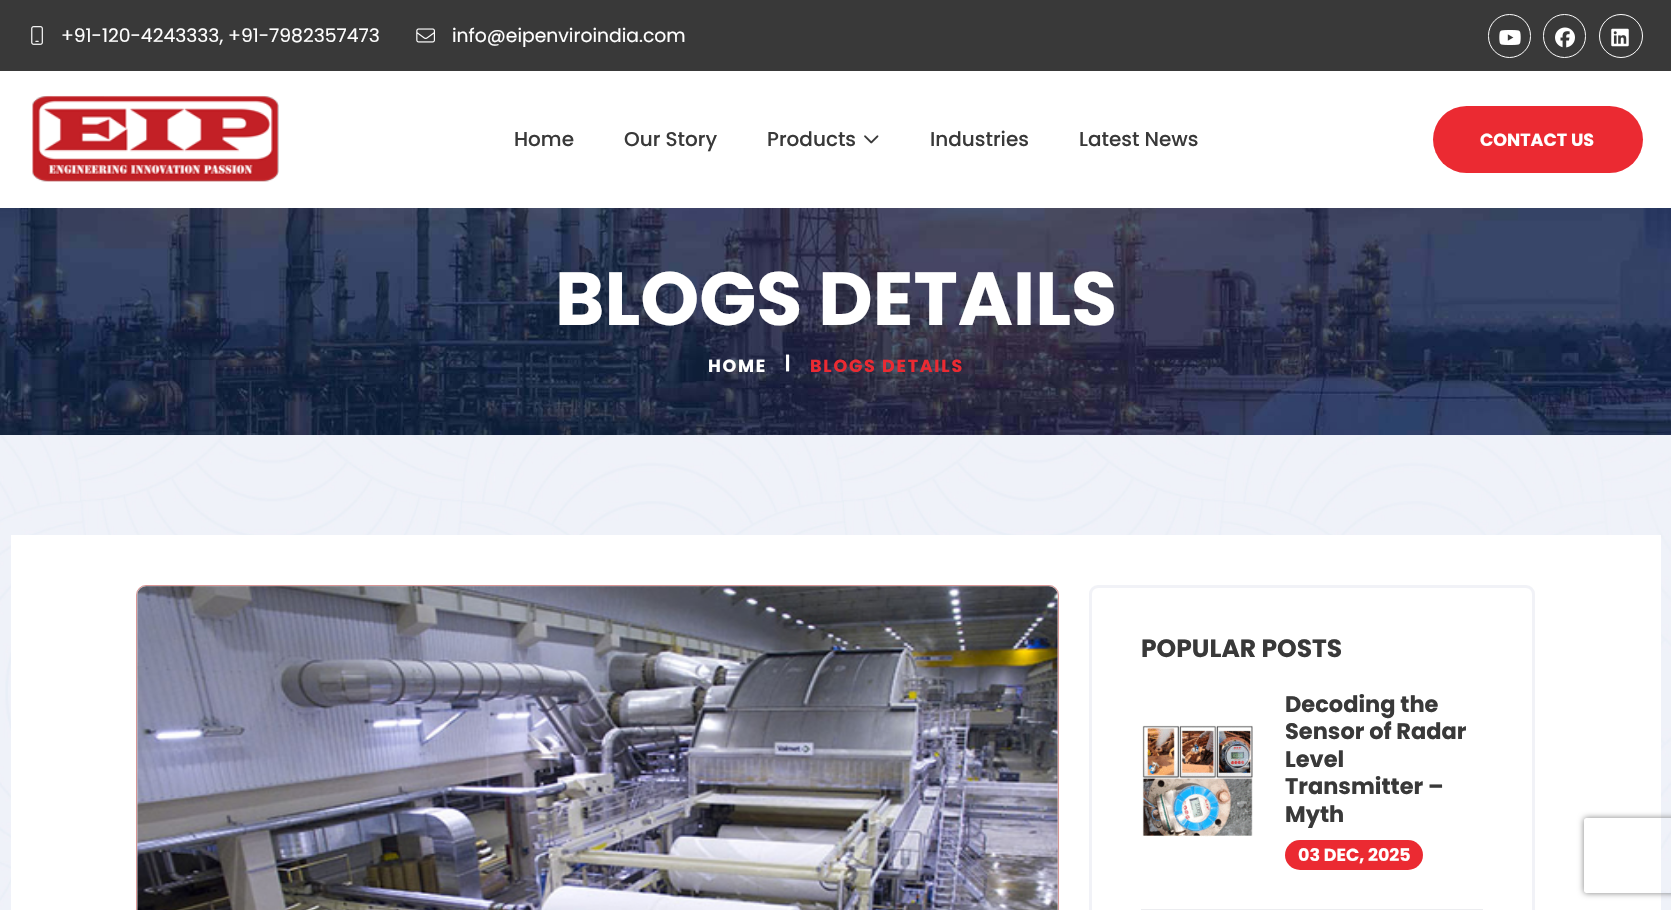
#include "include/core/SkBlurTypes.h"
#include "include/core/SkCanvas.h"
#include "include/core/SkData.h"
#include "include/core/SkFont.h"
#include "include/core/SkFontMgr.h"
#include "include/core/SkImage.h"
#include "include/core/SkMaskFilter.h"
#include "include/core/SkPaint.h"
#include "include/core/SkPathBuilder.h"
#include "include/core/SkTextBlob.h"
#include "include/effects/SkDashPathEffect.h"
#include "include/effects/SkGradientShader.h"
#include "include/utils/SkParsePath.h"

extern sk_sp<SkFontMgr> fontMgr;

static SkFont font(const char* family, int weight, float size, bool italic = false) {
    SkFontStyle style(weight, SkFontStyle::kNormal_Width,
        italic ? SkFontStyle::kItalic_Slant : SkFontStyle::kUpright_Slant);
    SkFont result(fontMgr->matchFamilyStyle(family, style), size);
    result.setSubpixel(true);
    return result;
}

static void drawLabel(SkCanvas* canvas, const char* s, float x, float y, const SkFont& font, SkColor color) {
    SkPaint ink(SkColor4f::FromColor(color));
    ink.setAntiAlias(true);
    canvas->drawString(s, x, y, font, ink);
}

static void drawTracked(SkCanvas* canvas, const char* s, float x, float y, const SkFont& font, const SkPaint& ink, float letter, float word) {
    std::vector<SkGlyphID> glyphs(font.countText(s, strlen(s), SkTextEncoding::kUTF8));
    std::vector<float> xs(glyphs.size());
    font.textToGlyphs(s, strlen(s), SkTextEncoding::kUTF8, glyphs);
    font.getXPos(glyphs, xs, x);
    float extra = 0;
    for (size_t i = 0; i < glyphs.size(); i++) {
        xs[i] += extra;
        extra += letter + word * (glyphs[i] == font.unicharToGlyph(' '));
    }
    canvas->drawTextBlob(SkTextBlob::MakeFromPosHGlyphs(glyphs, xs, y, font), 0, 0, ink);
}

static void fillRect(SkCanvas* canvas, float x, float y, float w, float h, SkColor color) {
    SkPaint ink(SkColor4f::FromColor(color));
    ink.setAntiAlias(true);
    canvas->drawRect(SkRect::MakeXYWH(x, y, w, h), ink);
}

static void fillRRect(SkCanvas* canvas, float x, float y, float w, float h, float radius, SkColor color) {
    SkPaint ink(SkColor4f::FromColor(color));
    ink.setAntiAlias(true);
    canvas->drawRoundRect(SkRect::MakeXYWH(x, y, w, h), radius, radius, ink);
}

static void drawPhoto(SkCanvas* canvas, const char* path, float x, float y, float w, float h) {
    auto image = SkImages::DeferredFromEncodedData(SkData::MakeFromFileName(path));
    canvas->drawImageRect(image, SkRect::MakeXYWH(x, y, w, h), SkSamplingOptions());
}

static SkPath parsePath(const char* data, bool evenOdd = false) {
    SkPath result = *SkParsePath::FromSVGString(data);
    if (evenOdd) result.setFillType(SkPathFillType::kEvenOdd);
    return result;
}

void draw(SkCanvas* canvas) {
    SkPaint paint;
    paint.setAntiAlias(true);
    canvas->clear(0xFFFFFFFF);
    fillRect(canvas, 0, 0, 1671, 71, 0xFF393939);
    drawPhoto(canvas, "assets/img1.png", 31, 26, 12, 19);
    SkFont font1 = font("Poppins", 400, 18.75f);
    drawLabel(canvas, "+91-120-4243333, +91-7982357473", 61, 42, font1, 0xFFFFFFFF);
    drawPhoto(canvas, "assets/img2.png", 416, 28, 19, 15);
    drawLabel(canvas, "info@eipenviroindia.com", 452, 42, font1, 0xFFFFFFFF);
    paint.setStroke(true);
    paint.setStrokeWidth(1);
    paint.setColor(0xFFFFFFFF);
    canvas->drawRoundRect(SkRect::MakeXYWH(1488.5f, 14.5f, 42, 43), 21, 21, paint);
    drawPhoto(canvas, "assets/img3.png", 1499, 30, 22, 15);
    canvas->drawRoundRect(SkRect::MakeXYWH(1543.5f, 14.5f, 42, 43), 21, 21, paint);
    drawPhoto(canvas, "assets/img4.png", 1555, 27, 20, 21);
    canvas->drawCircle(1621, 36, 21.5f, paint);
    drawPhoto(canvas, "assets/img5.png", 1611, 28, 18, 19);
    drawPhoto(canvas, "assets/img6.png", 32, 95, 247, 87);
    SkFont font2 = font("Poppins", 500, 20);
    drawLabel(canvas, "Home", 514, 146, font2, 0xFF393939);
    drawLabel(canvas, "Our Story", 624, 146, font2, 0xFF393939);
    drawLabel(canvas, "Products", 767, 146, font2, 0xFF393939);
    drawPhoto(canvas, "assets/img7.png", 864, 135, 15, 9);
    drawLabel(canvas, "Industries", 930, 146, font2, 0xFF393939);
    drawLabel(canvas, "Latest News", 1079, 146, font2, 0xFF393939);
    fillRRect(canvas, 1433, 106, 210, 67, 33.5f, 0xFFEB2A32);
    SkFont font3 = font("Poppins", 700, 17.5f);
    drawLabel(canvas, "CONTACT US", 1480, 146, font3, 0xFFFFFFFF);
    drawPhoto(canvas, "assets/img8.png", 0, 208, 1671, 227);
    SkFont font4 = font("Poppins", 700, 75);
    drawLabel(canvas, "BLOGS DETAILS", 555, 325, font4, 0xFFFFFFFF);
    paint.setStroke(false);
    drawTracked(canvas, "HOME", 708, 372, font3, paint, 1.75f, 0);
    drawTracked(canvas, "|", 785, 369, font3, paint, 1.75f, 0);
    paint.setColor(0xFFEB2A32);
    drawTracked(canvas, "BLOGS DETAILS", 810, 372, font3, paint, 1.75f, 0);
    drawPhoto(canvas, "assets/img9.png", 0, 435, 1671, 475);
    fillRect(canvas, 11, 535, 1650, 375, 0xFFFFFFFF);
    fillRRect(canvas, 136, 585, 923, 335, 10, 0xFFCDCDCD);
    paint.setStroke(true);
    paint.setColor(0x45FF0000);
    canvas->drawRoundRect(SkRect::MakeXYWH(136.5f, 585.5f, 922, 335), 9.5f, 9.5f, paint);
    drawPhoto(canvas, "assets/img10.png", 137, 586, 921, 324);
    paint.setStrokeWidth(3);
    paint.setColor(0xFFF1F2F7);
    canvas->drawRoundRect(SkRect::MakeXYWH(1090.5f, 586.5f, 443, 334), 7.5f, 7.5f, paint);
    SkFont font5 = font("Poppins", 700, 25);
    drawLabel(canvas, "POPULAR POSTS", 1141, 657, font5, 0xFF393939);
    fillRect(canvas, 1141, 909, 342, 1, 0xFFECEDF0);
    drawPhoto(canvas, "assets/img11.png", 1142, 725, 111, 112);
    SkFont font6 = font("Poppins", 700, 22.5f);
    drawLabel(canvas, "Decoding the", 1285, 712, font6, 0xFF393939);
    drawLabel(canvas, "Sensor of Radar", 1285, 739, font6, 0xFF393939);
    drawLabel(canvas, "Level", 1285, 767, font6, 0xFF393939);
    drawLabel(canvas, "Transmitter –", 1285, 794, font6, 0xFF393939);
    drawLabel(canvas, "Myth", 1285, 822, font6, 0xFF393939);
    fillRRect(canvas, 1285, 840, 138, 30, 15, 0xFFEB2A32);
    drawLabel(canvas, "03 DEC, 2025", 1298, 861, font3, 0xFFFFFFFF);
    canvas->save();
    canvas->clipPath(parsePath("M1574 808H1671V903H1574ZM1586.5 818H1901.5C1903 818 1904 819 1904 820.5V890.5C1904 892 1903 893 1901.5 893H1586.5C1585 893 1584 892 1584 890.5V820.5C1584 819 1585 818 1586.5 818Z", true), true);
    paint.setStroke(false);
    paint.setColor(0xFF808080);
    paint.setMaskFilter(SkMaskFilter::MakeBlur(kNormal_SkBlurStyle, 3));
    canvas->drawRoundRect(SkRect::MakeXYWH(1584, 818, 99, 75), 2.5f, 2.5f, paint);
    paint.setMaskFilter(nullptr);
    canvas->restore();
}
